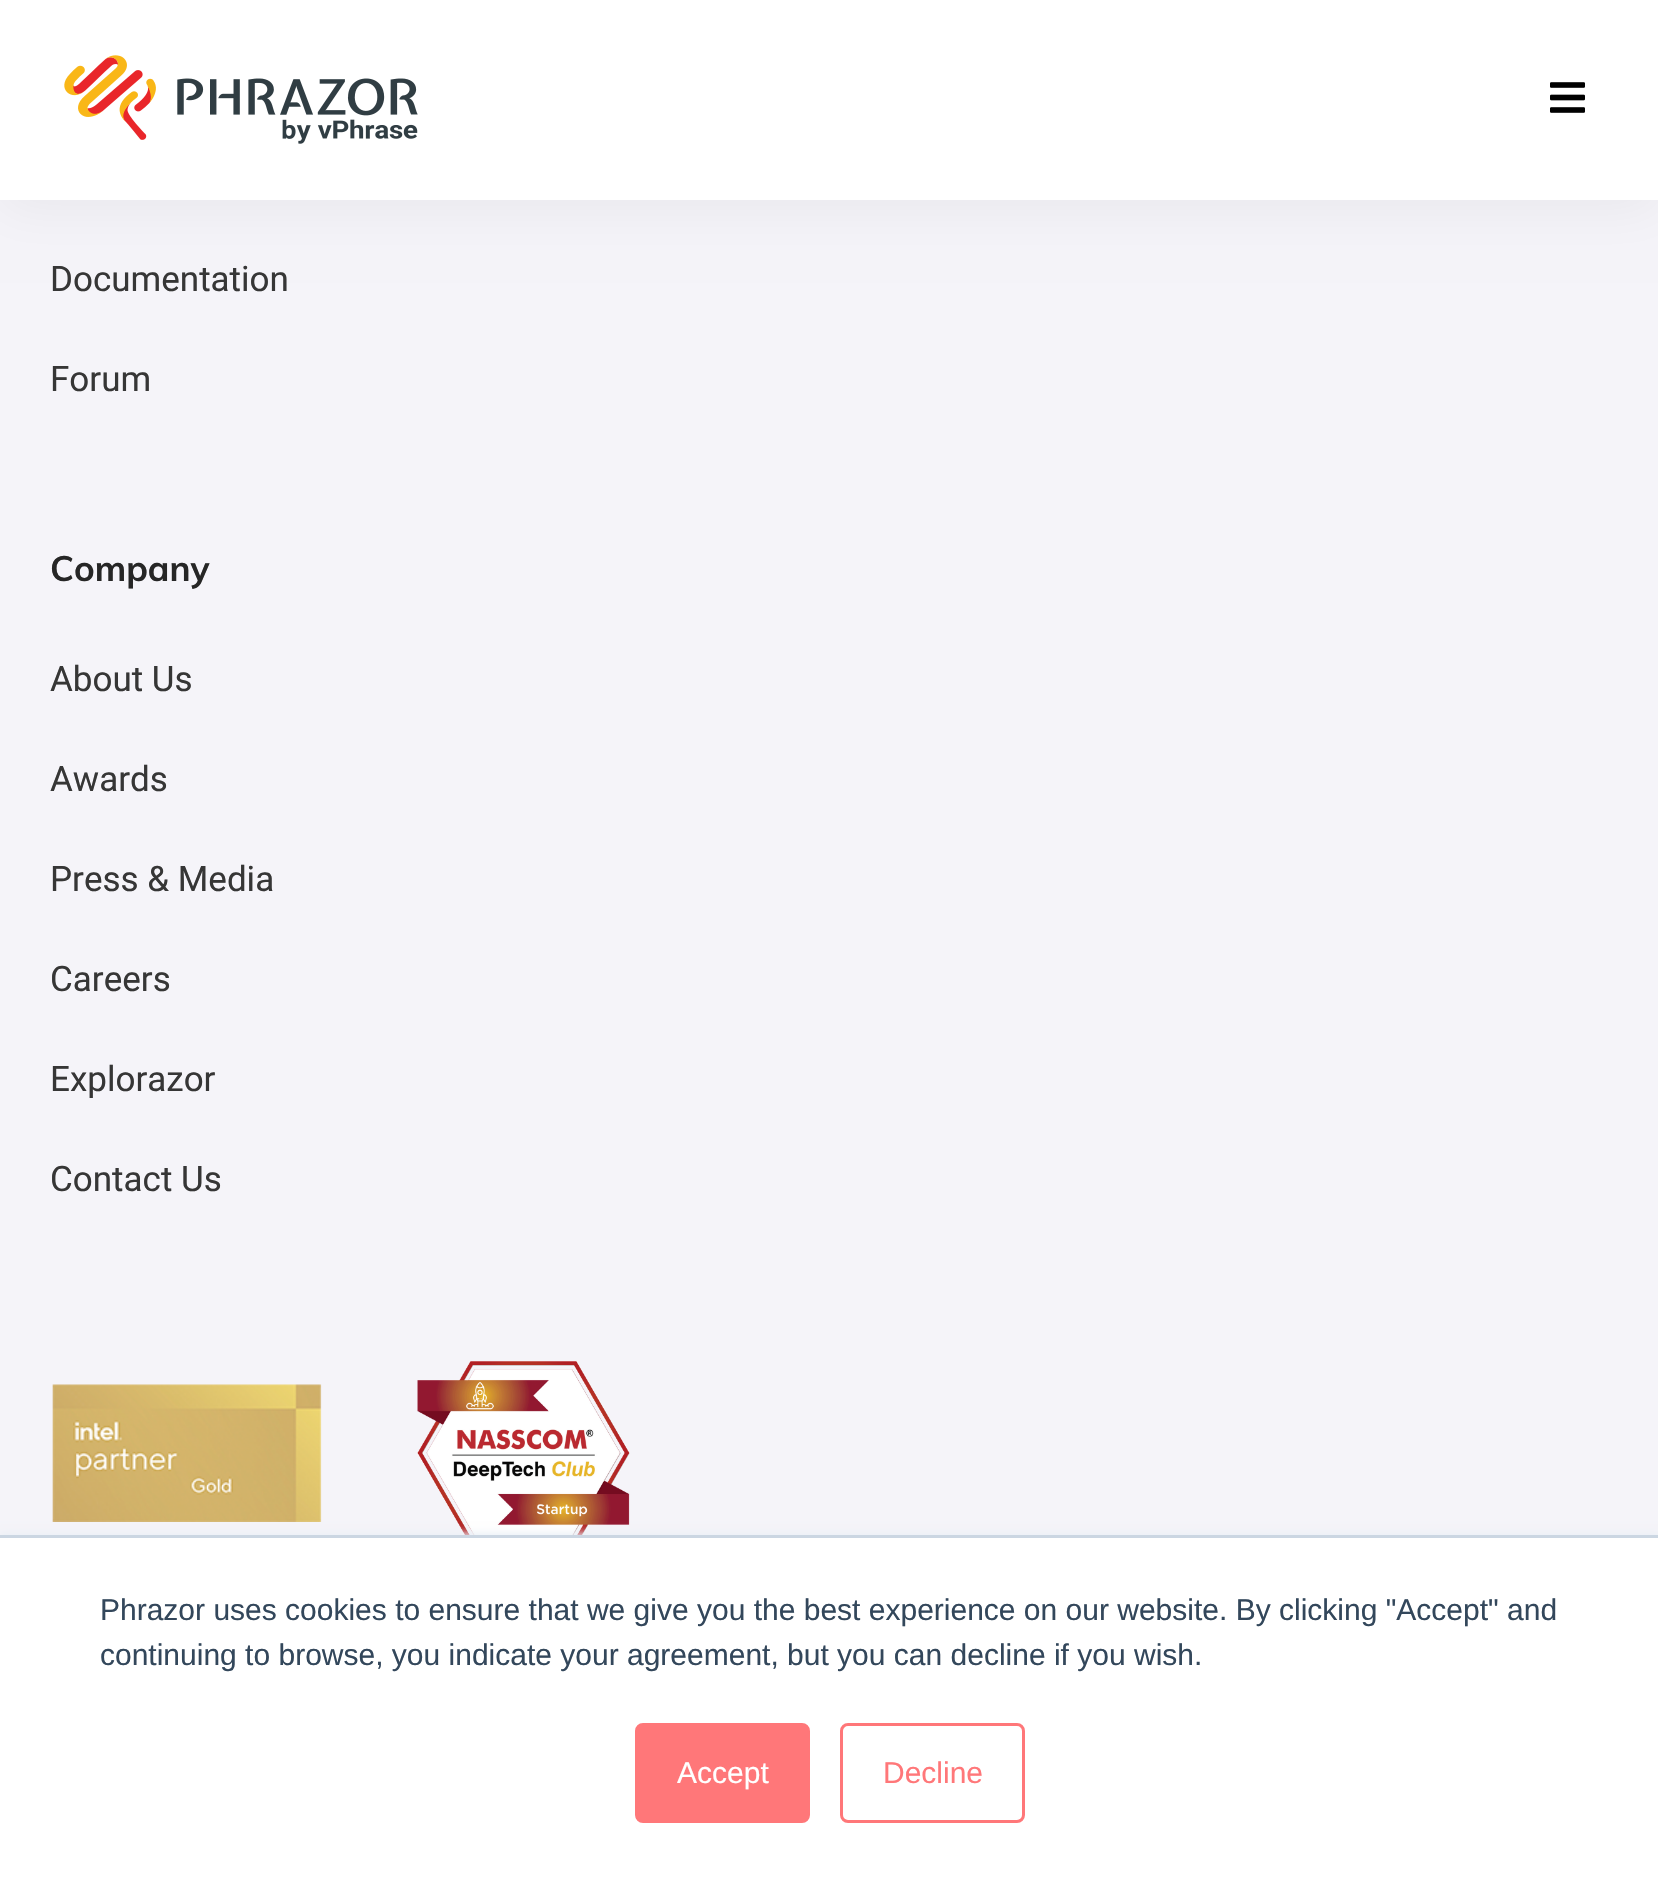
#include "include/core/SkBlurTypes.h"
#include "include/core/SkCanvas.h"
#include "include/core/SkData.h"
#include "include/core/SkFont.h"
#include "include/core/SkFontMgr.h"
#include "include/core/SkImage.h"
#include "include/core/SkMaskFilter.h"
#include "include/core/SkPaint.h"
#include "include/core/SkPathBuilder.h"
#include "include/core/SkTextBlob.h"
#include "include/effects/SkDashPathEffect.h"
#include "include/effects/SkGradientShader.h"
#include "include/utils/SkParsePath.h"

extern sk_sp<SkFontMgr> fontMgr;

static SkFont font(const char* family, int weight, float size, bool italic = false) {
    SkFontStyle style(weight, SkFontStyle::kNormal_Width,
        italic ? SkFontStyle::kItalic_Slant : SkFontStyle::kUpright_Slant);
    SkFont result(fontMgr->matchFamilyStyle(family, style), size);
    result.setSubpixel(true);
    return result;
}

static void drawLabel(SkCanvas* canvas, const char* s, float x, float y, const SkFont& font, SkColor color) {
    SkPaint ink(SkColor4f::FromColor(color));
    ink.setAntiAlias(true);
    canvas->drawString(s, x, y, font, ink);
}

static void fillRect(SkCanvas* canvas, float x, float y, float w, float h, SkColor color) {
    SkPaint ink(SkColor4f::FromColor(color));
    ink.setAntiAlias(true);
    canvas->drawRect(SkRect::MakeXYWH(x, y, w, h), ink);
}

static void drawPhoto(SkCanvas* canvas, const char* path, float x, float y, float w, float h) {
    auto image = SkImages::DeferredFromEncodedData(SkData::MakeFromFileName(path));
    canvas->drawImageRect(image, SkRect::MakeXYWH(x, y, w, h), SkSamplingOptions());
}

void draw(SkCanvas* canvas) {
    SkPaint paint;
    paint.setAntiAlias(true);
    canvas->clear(0xFFF5F4F9);
    paint.setColor(0x0D000000);
    paint.setMaskFilter(SkMaskFilter::MakeBlur(kNormal_SkBlurStyle, 25));
    canvas->drawRect(SkRect::MakeXYWH(0, 8, 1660, 200), paint);
    paint.setMaskFilter(nullptr);
    fillRect(canvas, 0, 0, 1658, 200, 0xFFFFFFFF);
    drawPhoto(canvas, "assets/img1.png", 64, 55, 354, 89);
    drawPhoto(canvas, "assets/img2.png", 1550, 82, 35, 31);
    SkFont font1 = font("Roboto", 400, 35);
    drawLabel(canvas, "Documentation", 50, 291, font1, 0xFF363636);
    drawLabel(canvas, "Forum", 50, 391, font1, 0xFF363636);
    SkFont font2 = font("Muli", 700, 35);
    drawLabel(canvas, "Company", 50, 581, font2, 0xFF262626);
    drawLabel(canvas, "About Us", 50, 691, font1, 0xFF363636);
    drawLabel(canvas, "Awards", 50, 791, font1, 0xFF363636);
    drawLabel(canvas, "Press & Media", 50, 891, font1, 0xFF363636);
    drawLabel(canvas, "Careers", 50, 991, font1, 0xFF363636);
    drawLabel(canvas, "Explorazor", 50, 1091, font1, 0xFF363636);
    drawLabel(canvas, "Contact Us", 50, 1191, font1, 0xFF363636);
    drawPhoto(canvas, "assets/img3.png", 52, 1384, 270, 138);
    drawPhoto(canvas, "assets/img4.png", 417, 1361, 213, 174);
    paint.setColor(0xFFEAF0F6);
    paint.setMaskFilter(SkMaskFilter::MakeBlur(kNormal_SkBlurStyle, 4));
    canvas->drawRect(SkRect::MakeXYWH(0, 1533, 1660, 352), paint);
    paint.setMaskFilter(nullptr);
    fillRect(canvas, 0, 1538, 1658, 349, 0xFFFFFFFF);
    fillRect(canvas, 0, 1535, 1658, 3, 0xFFCBD6E2);
    SkFont font3 = font("Liberation Sans", 400, 30);
    drawLabel(canvas, "Phrazor uses cookies to ensure that we give you the best experience on our website. By clicking \"Accept\" and", 100, 1620, font3, 0xFF33475B);
    drawLabel(canvas, "continuing to browse, you indicate your agreement, but you can decline if you wish.", 100, 1665, font3, 0xFF33475B);
    paint.setColor(0xFFFF7779);
    canvas->drawRoundRect(SkRect::MakeXYWH(636.5f, 1724.5f, 172, 97), 6.5f, 6.5f, paint);
    paint.setStroke(true);
    paint.setStrokeWidth(3);
    canvas->drawRoundRect(SkRect::MakeXYWH(636.5f, 1724.5f, 172, 97), 6.5f, 6.5f, paint);
    drawLabel(canvas, "Accept", 677, 1783, font3, 0xFFFFFFFF);
    canvas->drawRoundRect(SkRect::MakeXYWH(841.5f, 1724.5f, 182, 97), 6.5f, 6.5f, paint);
    drawLabel(canvas, "Decline", 883, 1783, font3, 0xFFFF7779);
}
